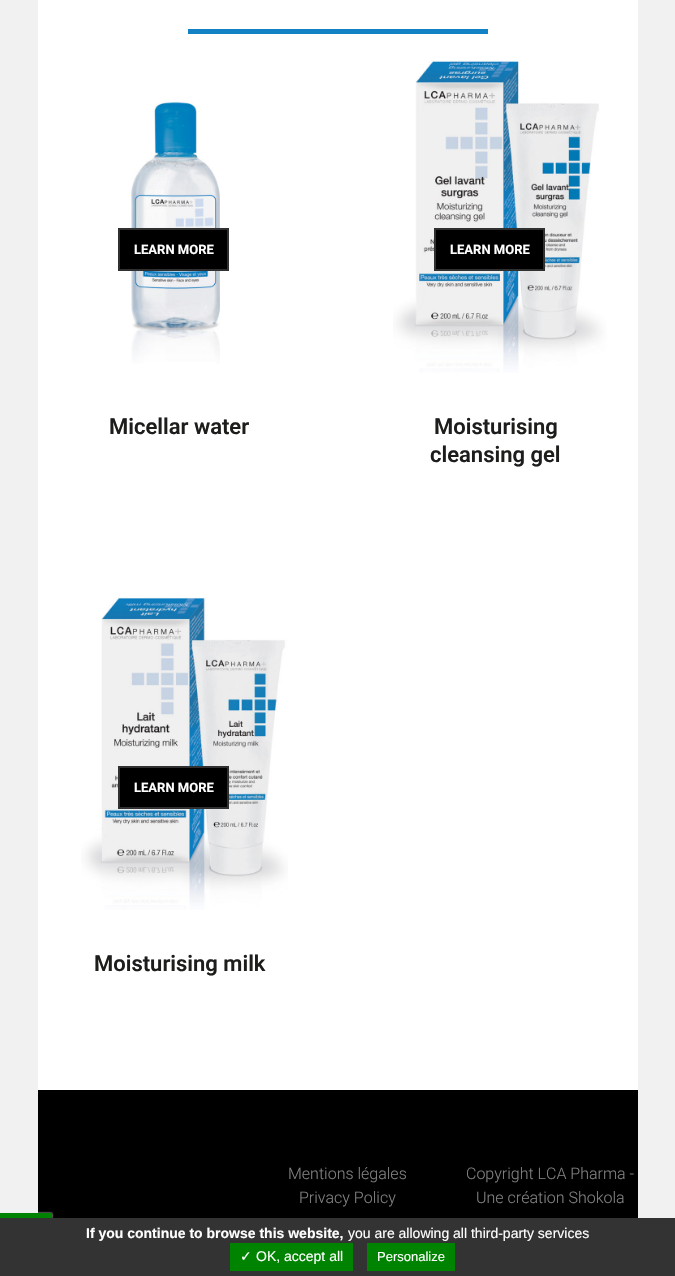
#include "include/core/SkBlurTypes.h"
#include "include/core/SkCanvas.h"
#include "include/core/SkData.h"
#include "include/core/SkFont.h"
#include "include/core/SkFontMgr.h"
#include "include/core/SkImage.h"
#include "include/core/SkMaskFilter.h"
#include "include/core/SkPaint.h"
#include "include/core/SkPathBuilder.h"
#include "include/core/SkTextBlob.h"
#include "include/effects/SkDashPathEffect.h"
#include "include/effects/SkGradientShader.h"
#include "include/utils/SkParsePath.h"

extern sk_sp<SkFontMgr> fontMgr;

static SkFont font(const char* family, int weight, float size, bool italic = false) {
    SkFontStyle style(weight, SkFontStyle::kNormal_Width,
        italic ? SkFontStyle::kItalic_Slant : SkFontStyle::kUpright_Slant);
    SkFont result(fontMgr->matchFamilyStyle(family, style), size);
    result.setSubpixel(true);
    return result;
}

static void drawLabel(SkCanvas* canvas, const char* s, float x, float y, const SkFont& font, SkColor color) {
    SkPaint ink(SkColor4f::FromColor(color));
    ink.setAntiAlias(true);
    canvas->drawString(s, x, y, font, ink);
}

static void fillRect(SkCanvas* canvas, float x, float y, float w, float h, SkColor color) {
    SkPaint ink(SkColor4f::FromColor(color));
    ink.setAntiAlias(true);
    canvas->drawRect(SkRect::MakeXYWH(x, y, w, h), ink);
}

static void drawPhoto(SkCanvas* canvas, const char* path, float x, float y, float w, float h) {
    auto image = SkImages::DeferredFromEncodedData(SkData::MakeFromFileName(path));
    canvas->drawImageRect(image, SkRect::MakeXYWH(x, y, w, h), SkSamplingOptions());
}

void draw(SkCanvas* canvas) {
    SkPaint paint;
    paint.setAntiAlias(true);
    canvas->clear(0xFFF1F1F1);
    fillRect(canvas, 38, 0, 600, 1090, 0xFFFFFFFF);
    fillRect(canvas, 188, 29, 300, 5, 0xFF1382C4);
    drawPhoto(canvas, "assets/img1.png", 131, 102, 89, 262);
    paint.setColor(0xFF000000);
    canvas->drawRect(SkRect::MakeXYWH(119, 229, 109, 41), paint);
    paint.setStroke(true);
    paint.setStrokeWidth(2);
    paint.setColor(0xFF303030);
    canvas->drawRect(SkRect::MakeXYWH(119, 229, 109, 41), paint);
    SkFont font1 = font("Roboto", 700, 13);
    drawLabel(canvas, "LEARN MORE", 134, 254, font1, 0xFFFFFFFF);
    SkFont font2 = font("Roboto", 600, 22);
    drawLabel(canvas, "Micellar water", 109, 434, font2, 0xFF1D1D1B);
    drawPhoto(canvas, "assets/img2.png", 393, 60, 214, 313);
    paint.setStroke(false);
    paint.setColor(0xFF000000);
    canvas->drawRect(SkRect::MakeXYWH(435, 229, 109, 41), paint);
    paint.setStroke(true);
    paint.setColor(0xFF303030);
    canvas->drawRect(SkRect::MakeXYWH(435, 229, 109, 41), paint);
    drawLabel(canvas, "LEARN MORE", 450, 254, font1, 0xFFFFFFFF);
    drawLabel(canvas, "Moisturising", 434, 434, font2, 0xFF1D1D1B);
    drawLabel(canvas, "cleansing gel", 430, 462, font2, 0xFF1D1D1B);
    drawPhoto(canvas, "assets/img3.png", 81, 597, 207, 313);
    paint.setStroke(false);
    paint.setColor(0xFF000000);
    canvas->drawRect(SkRect::MakeXYWH(119, 767, 109, 41), paint);
    paint.setStroke(true);
    paint.setColor(0xFF303030);
    canvas->drawRect(SkRect::MakeXYWH(119, 767, 109, 41), paint);
    drawLabel(canvas, "LEARN MORE", 134, 792, font1, 0xFFFFFFFF);
    drawLabel(canvas, "Moisturising milk", 94, 971, font2, 0xFF1D1D1B);
    fillRect(canvas, 38, 1090, 600, 128, 0xFF000000);
    SkFont font3 = font("Roboto", 300, 16);
    drawLabel(canvas, "Mentions légales", 288, 1179, font3, 0xFF818181);
    drawLabel(canvas, "Privacy Policy", 299, 1203, font3, 0xFF818181);
    drawLabel(canvas, "Copyright LCA Pharma -", 466, 1179, font3, 0xFF818181);
    drawLabel(canvas, "Une création Shokola", 476, 1203, font3, 0xFF818181);
    paint.setStroke(false);
    paint.setColor(0xFF555555);
    paint.setMaskFilter(SkMaskFilter::MakeBlur(kNormal_SkBlurStyle, 1));
    canvas->drawRect(SkRect::MakeXYWH(0, 1214, 52, 5), paint);
    paint.setMaskFilter(nullptr);
    paint.setColor(0xFFFFFFFF);
    paint.setMaskFilter(SkMaskFilter::MakeBlur(kNormal_SkBlurStyle, 1));
    canvas->drawRect(SkRect::MakeXYWH(0, 1213, 52, 5), paint);
    paint.setMaskFilter(nullptr);
    fillRect(canvas, 0, 1213, 52, 5, 0xFF008300);
    fillRect(canvas, 0, 1218, 675, 58, 0xFF333333);
    SkFont font4 = font("Liberation Sans", 700, 14);
    drawLabel(canvas, "If you continue to browse this website,", 86, 1238, font4, 0xFFFFFFFF);
    SkFont font5 = font("Liberation Sans", 400, 14);
    drawLabel(canvas, "you are allowing all third-party services", 348, 1238, font5, 0xFFFFFFFF);
    fillRect(canvas, 230, 1243, 123, 28, 0xFF008300);
    SkFont font6 = font("DejaVu Sans", 400, 14);
    drawLabel(canvas, "✓", 240, 1261, font6, 0xFFFFFFFF);
    drawLabel(canvas, "OK, accept all", 256, 1261, font5, 0xFFFFFFFF);
    fillRect(canvas, 367, 1243, 88, 28, 0xFF008300);
    SkFont font7 = font("Liberation Sans", 400, 13);
    drawLabel(canvas, "Personalize", 377, 1261, font7, 0xFFFFFFFF);
}
